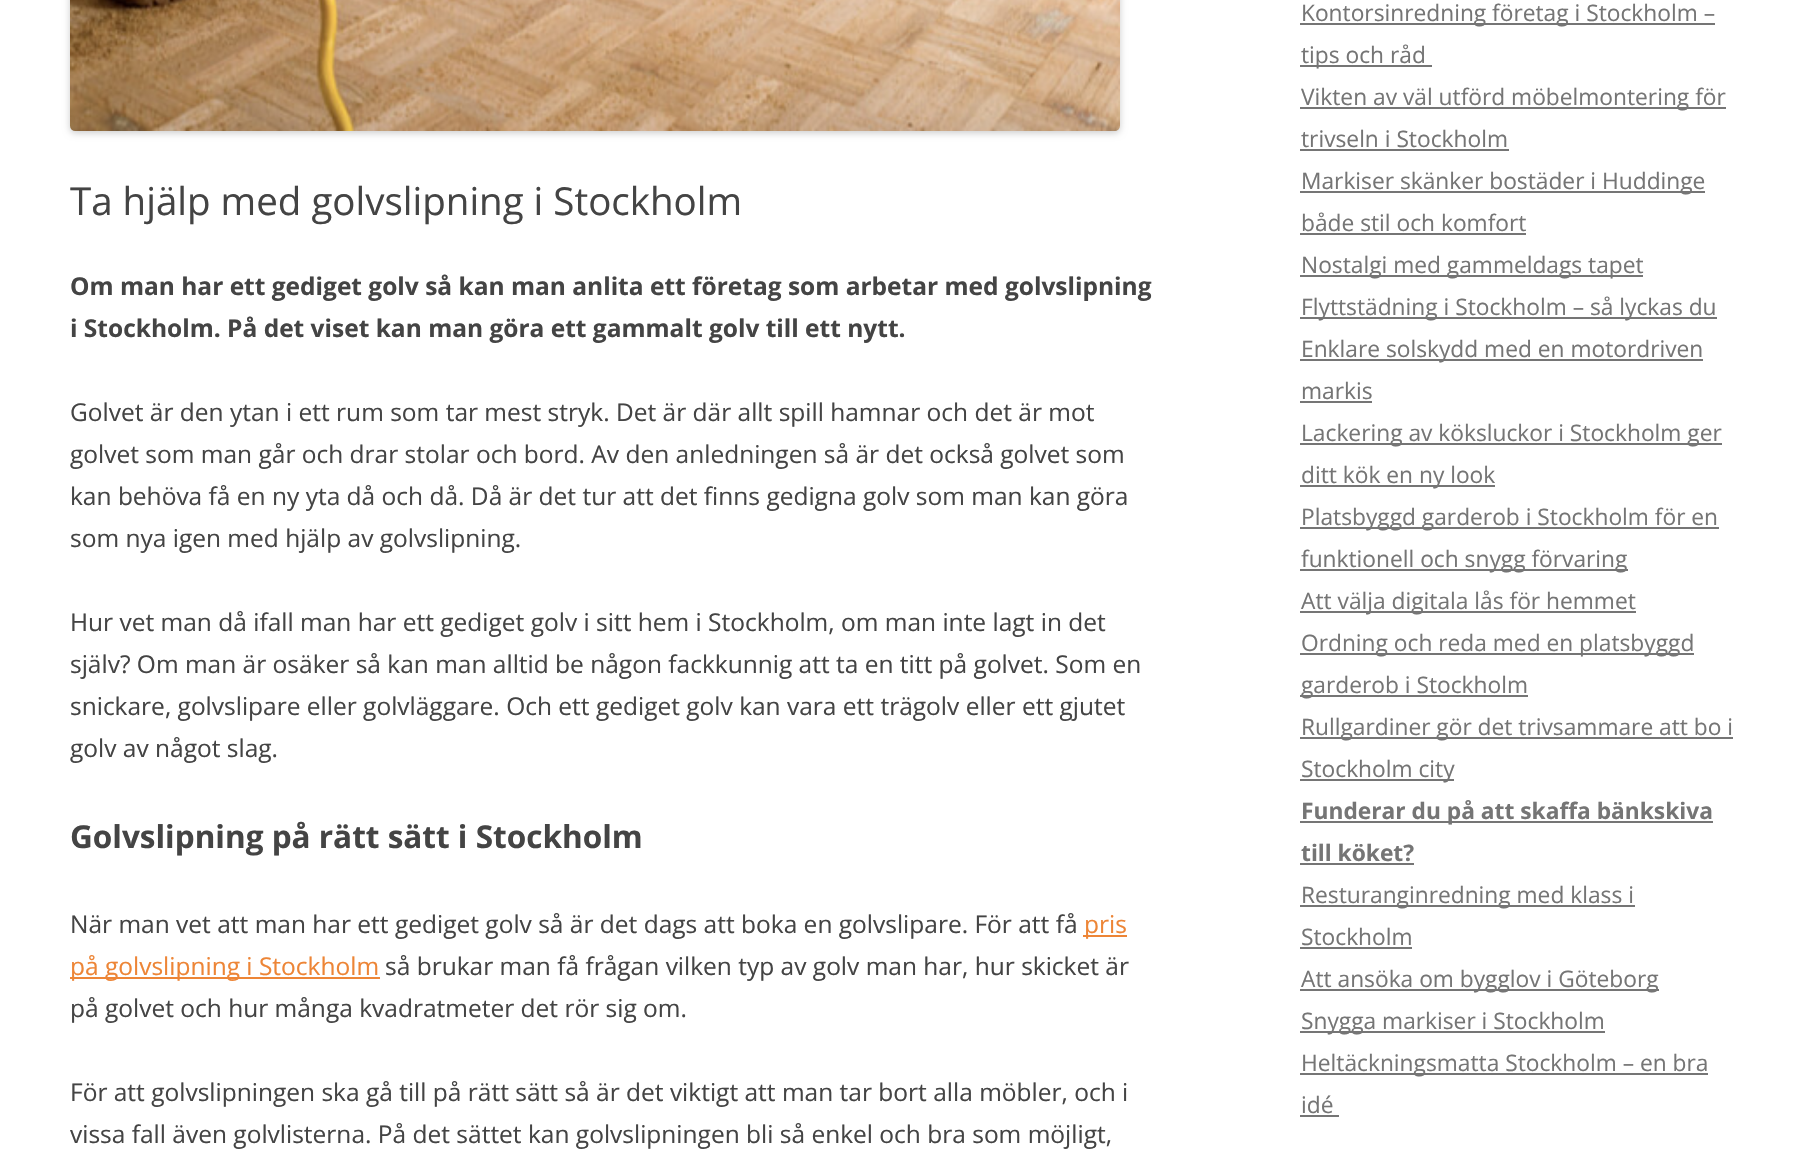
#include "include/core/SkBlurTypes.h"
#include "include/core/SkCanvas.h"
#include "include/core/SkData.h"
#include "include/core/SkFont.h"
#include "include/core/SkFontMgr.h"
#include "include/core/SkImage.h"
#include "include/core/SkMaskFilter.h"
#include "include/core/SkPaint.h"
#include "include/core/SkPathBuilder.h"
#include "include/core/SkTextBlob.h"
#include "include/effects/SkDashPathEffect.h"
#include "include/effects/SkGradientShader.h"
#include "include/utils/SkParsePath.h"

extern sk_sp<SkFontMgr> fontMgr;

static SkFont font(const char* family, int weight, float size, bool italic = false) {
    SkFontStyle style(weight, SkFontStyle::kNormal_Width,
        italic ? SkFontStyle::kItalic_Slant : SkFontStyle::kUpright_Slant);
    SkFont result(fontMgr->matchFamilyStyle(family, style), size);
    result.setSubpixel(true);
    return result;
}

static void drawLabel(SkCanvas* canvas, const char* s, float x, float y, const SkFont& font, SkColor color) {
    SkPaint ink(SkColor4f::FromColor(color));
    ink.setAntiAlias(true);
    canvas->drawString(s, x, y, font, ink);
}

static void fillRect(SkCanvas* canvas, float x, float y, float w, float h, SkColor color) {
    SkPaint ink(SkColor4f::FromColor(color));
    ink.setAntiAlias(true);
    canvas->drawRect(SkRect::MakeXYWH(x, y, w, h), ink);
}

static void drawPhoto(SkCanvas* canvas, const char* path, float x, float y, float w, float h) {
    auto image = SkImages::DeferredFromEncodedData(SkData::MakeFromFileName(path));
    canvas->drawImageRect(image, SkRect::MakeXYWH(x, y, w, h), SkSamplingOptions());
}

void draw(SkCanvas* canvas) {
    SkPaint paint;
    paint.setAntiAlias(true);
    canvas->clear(0xFFFFFFFF);
    paint.setColor(0x33000000);
    paint.setMaskFilter(SkMaskFilter::MakeBlur(kNormal_SkBlurStyle, 3.5f));
    canvas->drawRoundRect(SkRect::MakeXYWH(70, -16, 1050, 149), 5, 5, paint);
    paint.setMaskFilter(nullptr);
    drawPhoto(canvas, "assets/img1.png", 70, 0, 1050, 131);
    SkFont font1 = font("Open Sans", 400, 38.5f);
    drawLabel(canvas, "Ta hjälp med golvslipning i Stockholm", 70, 215, font1, 0xFF444444);
    SkFont font2 = font("Open Sans", 700, 24.5f);
    drawLabel(canvas, "Om man har ett gediget golv så kan man anlita ett företag som arbetar med golvslipning", 70, 295, font2, 0xFF444444);
    drawLabel(canvas, "i Stockholm. På det viset kan man göra ett gammalt golv till ett nytt.", 70, 337, font2, 0xFF444444);
    SkFont font3 = font("Open Sans", 400, 24.5f);
    drawLabel(canvas, "Golvet är den ytan i ett rum som tar mest stryk. Det är där allt spill hamnar och det är mot", 70, 421, font3, 0xFF444444);
    drawLabel(canvas, "golvet som man går och drar stolar och bord. Av den anledningen så är det också golvet som", 70, 463, font3, 0xFF444444);
    drawLabel(canvas, "kan behöva få en ny yta då och då. Då är det tur att det finns gedigna golv som man kan göra", 70, 505, font3, 0xFF444444);
    drawLabel(canvas, "som nya igen med hjälp av golvslipning.", 70, 547, font3, 0xFF444444);
    drawLabel(canvas, "Hur vet man då ifall man har ett gediget golv i sitt hem i Stockholm, om man inte lagt in det", 70, 631, font3, 0xFF444444);
    drawLabel(canvas, "själv? Om man är osäker så kan man alltid be någon fackkunnig att ta en titt på golvet. Som en", 70, 673, font3, 0xFF444444);
    drawLabel(canvas, "snickare, golvslipare eller golvläggare. Och ett gediget golv kan vara ett trägolv eller ett gjutet", 70, 715, font3, 0xFF444444);
    drawLabel(canvas, "golv av något slag.", 70, 757, font3, 0xFF444444);
    SkFont font4 = font("Open Sans", 700, 31.5f);
    drawLabel(canvas, "Golvslipning på rätt sätt i Stockholm", 70, 848, font4, 0xFF444444);
    drawLabel(canvas, "När man vet att man har ett gediget golv så är det dags att boka en golvslipare. För att få", 70, 933, font3, 0xFF444444);
    fillRect(canvas, 1083, 935, 44, 2, 0xFFED8536);
    drawLabel(canvas, "pris", 1084, 933, font3, 0xFFED8536);
    fillRect(canvas, 70, 977, 310, 2, 0xFFED8536);
    drawLabel(canvas, "på golvslipning i Stockholm", 70, 975, font3, 0xFFED8536);
    drawLabel(canvas, "så brukar man få frågan vilken typ av golv man har, hur skicket är", 385, 975, font3, 0xFF444444);
    drawLabel(canvas, "på golvet och hur många kvadratmeter det rör sig om.", 70, 1017, font3, 0xFF444444);
    drawLabel(canvas, "För att golvslipningen ska gå till på rätt sätt så är det viktigt att man tar bort alla möbler, och i", 70, 1101, font3, 0xFF444444);
    drawLabel(canvas, "vissa fall även golvlisterna. På det sättet kan golvslipningen bli så enkel och bra som möjligt,", 70, 1143, font3, 0xFF444444);
    fillRect(canvas, 1300, 23, 415, 2, 0xFF757575);
    SkFont font5 = font("Open Sans", 400, 22.75f);
    drawLabel(canvas, "Kontorsinredning företag i Stockholm –", 1301, 21, font5, 0xFF757575);
    fillRect(canvas, 1300, 65, 132, 2, 0xFF757575);
    drawLabel(canvas, "tips och råd", 1301, 63, font5, 0xFF757575);
    fillRect(canvas, 1300, 107, 426, 2, 0xFF757575);
    drawLabel(canvas, "Vikten av väl utförd möbelmontering för", 1301, 105, font5, 0xFF757575);
    drawLabel(canvas, "trivseln i Stockholm", 1301, 147, font5, 0xFF757575);
    fillRect(canvas, 1300, 149, 209, 2, 0xFF757575);
    fillRect(canvas, 1300, 191, 405, 2, 0xFF757575);
    drawLabel(canvas, "Markiser skänker bostäder i Huddinge", 1301, 189, font5, 0xFF757575);
    drawLabel(canvas, "både stil och komfort", 1301, 231, font5, 0xFF757575);
    fillRect(canvas, 1300, 233, 226, 2, 0xFF757575);
    fillRect(canvas, 1300, 275, 343, 2, 0xFF757575);
    drawLabel(canvas, "Nostalgi med gammeldags tapet", 1301, 273, font5, 0xFF757575);
    fillRect(canvas, 1300, 317, 417, 2, 0xFF757575);
    drawLabel(canvas, "Flyttstädning i Stockholm – så lyckas du", 1301, 315, font5, 0xFF757575);
    fillRect(canvas, 1300, 359, 403, 2, 0xFF757575);
    drawLabel(canvas, "Enklare solskydd med en motordriven", 1301, 357, font5, 0xFF757575);
    drawLabel(canvas, "markis", 1301, 399, font5, 0xFF757575);
    fillRect(canvas, 1300, 401, 72, 2, 0xFF757575);
    fillRect(canvas, 1300, 443, 422, 2, 0xFF757575);
    drawLabel(canvas, "Lackering av köksluckor i Stockholm ger", 1301, 441, font5, 0xFF757575);
    fillRect(canvas, 1300, 485, 195, 2, 0xFF757575);
    drawLabel(canvas, "ditt kök en ny look", 1301, 483, font5, 0xFF757575);
    fillRect(canvas, 1300, 527, 419, 2, 0xFF757575);
    drawLabel(canvas, "Platsbyggd garderob i Stockholm för en", 1301, 525, font5, 0xFF757575);
    fillRect(canvas, 1300, 569, 328, 2, 0xFF757575);
    drawLabel(canvas, "funktionell och snygg förvaring", 1301, 567, font5, 0xFF757575);
    fillRect(canvas, 1300, 611, 336, 2, 0xFF757575);
    drawLabel(canvas, "Att välja digitala lås för hemmet", 1301, 609, font5, 0xFF757575);
    fillRect(canvas, 1300, 653, 394, 2, 0xFF757575);
    drawLabel(canvas, "Ordning och reda med en platsbyggd", 1301, 651, font5, 0xFF757575);
    fillRect(canvas, 1300, 695, 228, 2, 0xFF757575);
    drawLabel(canvas, "garderob i Stockholm", 1301, 693, font5, 0xFF757575);
    fillRect(canvas, 1300, 737, 433, 2, 0xFF757575);
    drawLabel(canvas, "Rullgardiner gör det trivsammare att bo i", 1301, 735, font5, 0xFF757575);
    fillRect(canvas, 1300, 779, 154, 2, 0xFF757575);
    drawLabel(canvas, "Stockholm city", 1301, 777, font5, 0xFF757575);
    fillRect(canvas, 1300, 821, 413, 2, 0xFF757575);
    SkFont font6 = font("Open Sans", 700, 22.75f);
    drawLabel(canvas, "Funderar du på att skaffa bänkskiva", 1301, 819, font6, 0xFF757575);
    drawLabel(canvas, "till köket?", 1301, 861, font6, 0xFF757575);
    fillRect(canvas, 1300, 863, 114, 2, 0xFF757575);
    fillRect(canvas, 1300, 905, 335, 2, 0xFF757575);
    drawLabel(canvas, "Resturanginredning med klass i", 1301, 903, font5, 0xFF757575);
    drawLabel(canvas, "Stockholm", 1301, 945, font5, 0xFF757575);
    fillRect(canvas, 1300, 947, 112, 2, 0xFF757575);
    fillRect(canvas, 1300, 989, 359, 2, 0xFF757575);
    drawLabel(canvas, "Att ansöka om bygglov i Göteborg", 1301, 987, font5, 0xFF757575);
    fillRect(canvas, 1300, 1031, 305, 2, 0xFF757575);
    drawLabel(canvas, "Snygga markiser i Stockholm", 1301, 1029, font5, 0xFF757575);
    fillRect(canvas, 1300, 1073, 408, 2, 0xFF757575);
    drawLabel(canvas, "Heltäckningsmatta Stockholm – en bra", 1301, 1071, font5, 0xFF757575);
    drawLabel(canvas, "idé", 1301, 1113, font5, 0xFF757575);
    fillRect(canvas, 1300, 1115, 39, 2, 0xFF757575);
}
